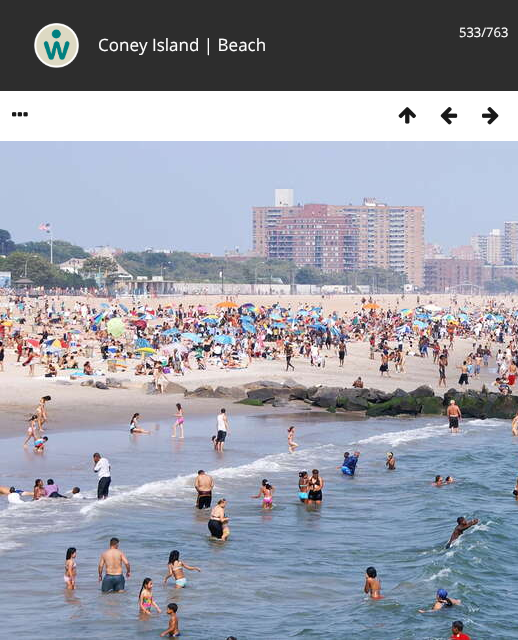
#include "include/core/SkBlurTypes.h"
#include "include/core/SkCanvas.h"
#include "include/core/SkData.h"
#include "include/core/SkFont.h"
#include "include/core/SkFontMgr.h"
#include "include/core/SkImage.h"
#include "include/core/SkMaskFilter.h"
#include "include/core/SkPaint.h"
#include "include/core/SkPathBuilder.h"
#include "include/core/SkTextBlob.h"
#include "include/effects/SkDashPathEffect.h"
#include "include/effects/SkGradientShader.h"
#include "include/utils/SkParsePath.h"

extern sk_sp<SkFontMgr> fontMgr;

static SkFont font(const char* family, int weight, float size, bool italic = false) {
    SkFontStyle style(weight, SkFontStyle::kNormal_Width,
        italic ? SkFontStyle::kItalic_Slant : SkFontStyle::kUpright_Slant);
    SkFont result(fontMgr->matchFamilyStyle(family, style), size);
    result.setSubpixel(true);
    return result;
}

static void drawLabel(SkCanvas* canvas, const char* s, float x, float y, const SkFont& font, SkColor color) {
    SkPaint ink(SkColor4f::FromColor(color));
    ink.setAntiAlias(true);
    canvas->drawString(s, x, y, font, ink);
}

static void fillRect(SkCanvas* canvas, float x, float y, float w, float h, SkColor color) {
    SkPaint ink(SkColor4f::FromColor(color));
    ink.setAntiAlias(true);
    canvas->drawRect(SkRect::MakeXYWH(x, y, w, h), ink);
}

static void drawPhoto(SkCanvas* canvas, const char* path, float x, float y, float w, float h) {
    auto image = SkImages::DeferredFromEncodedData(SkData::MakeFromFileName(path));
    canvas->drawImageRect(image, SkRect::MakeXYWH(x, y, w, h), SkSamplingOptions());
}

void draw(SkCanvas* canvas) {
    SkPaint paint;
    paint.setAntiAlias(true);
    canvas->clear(0xFFFFFFFF);
    fillRect(canvas, 0, 0, 518, 91, 0xFF2D2D2D);
    SkFont font1 = font("Open Sans", 400, 13);
    drawLabel(canvas, "533/763", 459, 37, font1, 0xFFFFFFFF);
    drawPhoto(canvas, "assets/img1.png", 34, 23, 45, 45);
    SkFont font2 = font("Open Sans", 400, 17);
    drawLabel(canvas, "Coney Island | Beach", 98, 51, font2, 0xFFFFFFFF);
    drawPhoto(canvas, "assets/img2.png", 12, 112, 16, 5);
    drawPhoto(canvas, "assets/img3.png", 398, 107, 18, 17);
    drawPhoto(canvas, "assets/img4.png", 440, 107, 18, 18);
    drawPhoto(canvas, "assets/img5.png", 482, 107, 17, 18);
    drawPhoto(canvas, "assets/img6.png", 0, 141, 518, 499);
}
